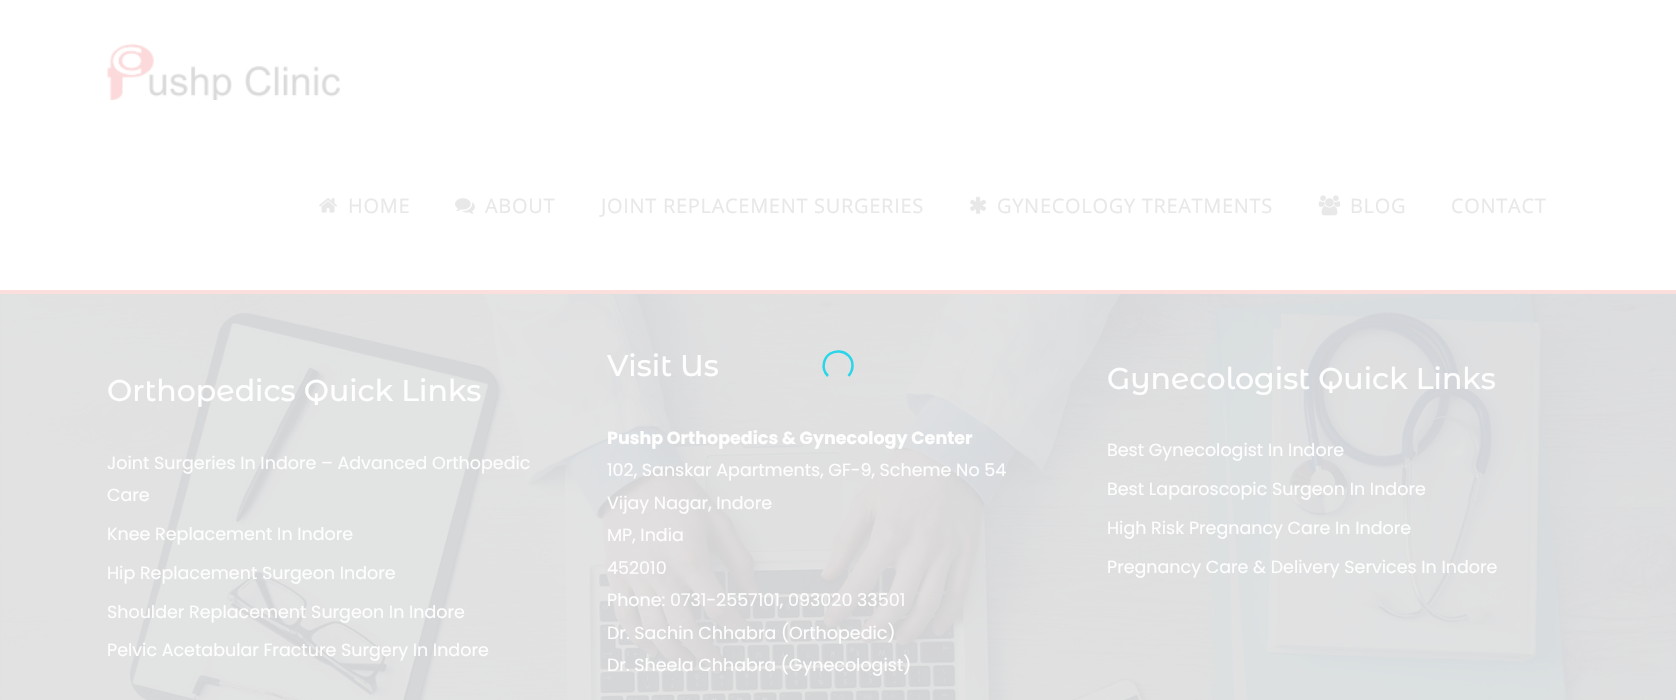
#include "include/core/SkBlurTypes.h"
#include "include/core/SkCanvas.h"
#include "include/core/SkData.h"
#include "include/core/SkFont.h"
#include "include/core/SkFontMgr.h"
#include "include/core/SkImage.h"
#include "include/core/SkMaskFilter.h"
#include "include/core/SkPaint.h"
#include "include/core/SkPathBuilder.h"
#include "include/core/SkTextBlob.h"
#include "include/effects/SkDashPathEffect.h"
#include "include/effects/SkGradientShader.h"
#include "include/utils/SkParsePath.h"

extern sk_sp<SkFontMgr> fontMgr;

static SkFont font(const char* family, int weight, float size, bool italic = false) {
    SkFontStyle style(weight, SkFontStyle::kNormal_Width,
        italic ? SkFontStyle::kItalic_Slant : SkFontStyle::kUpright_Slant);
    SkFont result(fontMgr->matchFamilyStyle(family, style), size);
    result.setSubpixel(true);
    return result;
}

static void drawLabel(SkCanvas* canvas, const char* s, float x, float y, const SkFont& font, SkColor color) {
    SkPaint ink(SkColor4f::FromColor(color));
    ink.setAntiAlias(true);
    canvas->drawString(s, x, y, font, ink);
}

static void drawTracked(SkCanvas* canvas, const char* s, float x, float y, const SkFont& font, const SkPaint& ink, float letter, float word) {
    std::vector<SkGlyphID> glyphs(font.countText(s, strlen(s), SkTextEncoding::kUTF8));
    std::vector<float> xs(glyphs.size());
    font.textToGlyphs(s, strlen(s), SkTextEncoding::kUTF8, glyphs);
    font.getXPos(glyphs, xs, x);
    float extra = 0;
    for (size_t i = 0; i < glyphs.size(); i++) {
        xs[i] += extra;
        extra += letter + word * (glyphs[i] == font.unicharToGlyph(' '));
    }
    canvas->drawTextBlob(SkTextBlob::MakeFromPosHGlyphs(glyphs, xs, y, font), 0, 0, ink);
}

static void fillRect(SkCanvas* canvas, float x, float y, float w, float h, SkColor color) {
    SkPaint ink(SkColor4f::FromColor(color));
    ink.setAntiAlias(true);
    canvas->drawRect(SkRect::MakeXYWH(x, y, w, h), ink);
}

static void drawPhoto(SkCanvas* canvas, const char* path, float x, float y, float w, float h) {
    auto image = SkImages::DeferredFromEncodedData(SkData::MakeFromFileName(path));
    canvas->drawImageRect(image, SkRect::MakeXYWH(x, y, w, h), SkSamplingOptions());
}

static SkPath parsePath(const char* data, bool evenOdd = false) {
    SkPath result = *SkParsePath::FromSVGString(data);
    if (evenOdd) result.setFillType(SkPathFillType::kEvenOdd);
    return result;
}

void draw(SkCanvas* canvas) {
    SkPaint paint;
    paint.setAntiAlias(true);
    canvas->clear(0xFFFFFFFF);
    drawPhoto(canvas, "assets/img1.png", 107, 43, 233, 57);
    drawPhoto(canvas, "assets/img2.png", 319, 198, 18, 15);
    SkFont font1 = font("Open Sans", 400, 20);
    paint.setColor(0xFFE8E8E8);
    drawTracked(canvas, "HOME", 348, 213, font1, paint, 0.7f, 0);
    drawPhoto(canvas, "assets/img3.png", 455, 198, 20, 16);
    drawTracked(canvas, "ABOUT", 485, 213, font1, paint, 0.7f, 0);
    drawTracked(canvas, "JOINT REPLACEMENT SURGERIES", 601, 213, font1, paint, 0.7f, 0);
    drawPhoto(canvas, "assets/img4.png", 970, 196, 16, 18);
    drawTracked(canvas, "GYNECOLOGY TREATMENTS", 997, 213, font1, paint, 0.7f, 0);
    drawPhoto(canvas, "assets/img5.png", 1318, 195, 23, 21);
    drawTracked(canvas, "BLOG", 1350, 213, font1, paint, 0.7f, 0);
    drawTracked(canvas, "CONTACT", 1451, 213, font1, paint, 0.7f, 0);
    drawPhoto(canvas, "assets/img6.png", 0, 294, 1676, 406);
    paint.setStroke(true);
    paint.setStrokeWidth(2.5f);
    paint.setColor(0xFF28D5E9);
    canvas->drawPath(parsePath("M828 376C824.5 372.5 823 367.5 824 363C827.5 346 852.5 348.5 852.5 365.5C852.5 369.5 851 373 848.5 376"), paint);
    fillRect(canvas, 0, 290, 1676, 4, 0xFFFBDFDC);
    SkFont font2 = font("Montserrat Alternates", 500, 30);
    drawLabel(canvas, "Orthopedics Quick Links", 107, 401, font2, 0xFFFEFEFE);
    SkFont font3 = font("Poppins", 400, 17.5f);
    drawLabel(canvas, "Joint Surgeries In Indore – Advanced Orthopedic", 107, 469, font3, 0xFFFEFEFE);
    drawLabel(canvas, "Care", 107, 501, font3, 0xFFFEFEFE);
    drawLabel(canvas, "Knee Replacement In Indore", 107, 540, font3, 0xFFFEFEFE);
    drawLabel(canvas, "Hip Replacement Surgeon Indore", 107, 579, font3, 0xFFFEFEFE);
    drawLabel(canvas, "Shoulder Replacement Surgeon In Indore", 107, 618, font3, 0xFFFEFEFE);
    drawLabel(canvas, "Pelvic Acetabular Fracture Surgery In Indore", 107, 656, font3, 0xFFFEFEFE);
    drawLabel(canvas, "Visit Us", 607, 376, font2, 0xFFFEFEFE);
    SkFont font4 = font("Poppins", 700, 17.5f);
    drawLabel(canvas, "Pushp Orthopedics & Gynecology Center", 607, 444, font4, 0xFFFEFEFE);
    drawLabel(canvas, "102, Sanskar Apartments, GF-9, Scheme No 54", 607, 476, font3, 0xFFFEFEFE);
    drawLabel(canvas, "Vijay Nagar, Indore", 607, 509, font3, 0xFFFEFEFE);
    drawLabel(canvas, "MP, India", 607, 541, font3, 0xFFFEFEFE);
    drawLabel(canvas, "452010", 607, 574, font3, 0xFFFEFEFE);
    drawLabel(canvas, "Phone: 0731-2557101, 093020 33501", 607, 606, font3, 0xFFFEFEFE);
    drawLabel(canvas, "Dr. Sachin Chhabra (Orthopedic)", 607, 639, font3, 0xFFFEFEFE);
    drawLabel(canvas, "Dr. Sheela Chhabra (Gynecologist)", 607, 671, font3, 0xFFFEFEFE);
    drawLabel(canvas, "Gynecologist Quick Links", 1107, 389, font2, 0xFFFEFEFE);
    drawLabel(canvas, "Best Gynecologist In Indore", 1107, 456, font3, 0xFFFEFEFE);
    drawLabel(canvas, "Best Laparoscopic Surgeon In Indore", 1107, 495, font3, 0xFFFEFEFE);
    drawLabel(canvas, "High Risk Pregnancy Care In Indore", 1107, 534, font3, 0xFFFEFEFE);
    drawLabel(canvas, "Pregnancy Care & Delivery Services In Indore", 1107, 573, font3, 0xFFFEFEFE);
}
